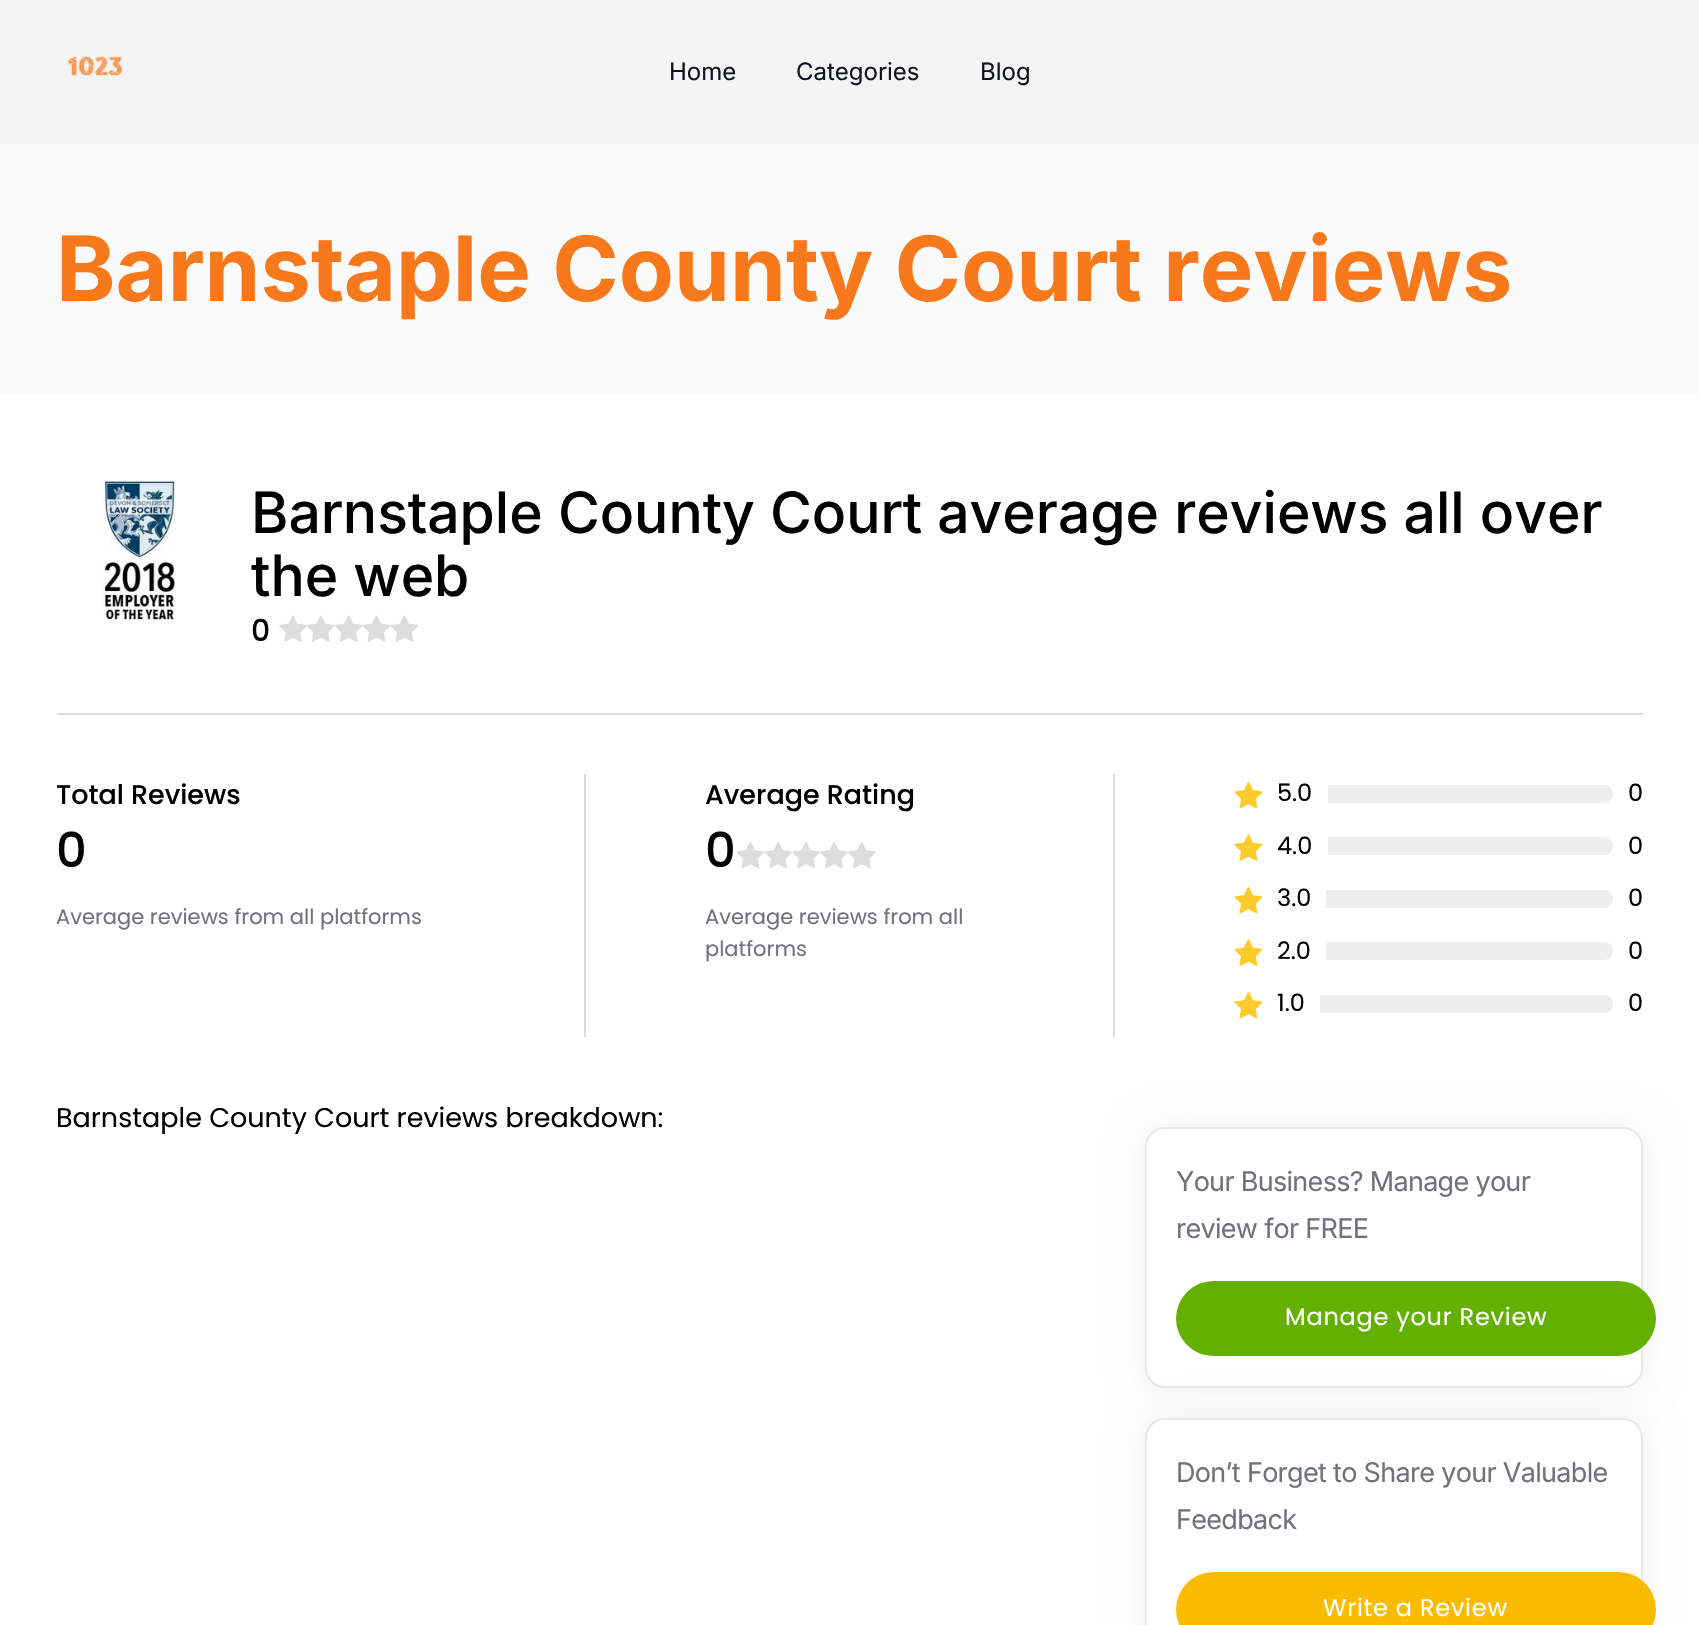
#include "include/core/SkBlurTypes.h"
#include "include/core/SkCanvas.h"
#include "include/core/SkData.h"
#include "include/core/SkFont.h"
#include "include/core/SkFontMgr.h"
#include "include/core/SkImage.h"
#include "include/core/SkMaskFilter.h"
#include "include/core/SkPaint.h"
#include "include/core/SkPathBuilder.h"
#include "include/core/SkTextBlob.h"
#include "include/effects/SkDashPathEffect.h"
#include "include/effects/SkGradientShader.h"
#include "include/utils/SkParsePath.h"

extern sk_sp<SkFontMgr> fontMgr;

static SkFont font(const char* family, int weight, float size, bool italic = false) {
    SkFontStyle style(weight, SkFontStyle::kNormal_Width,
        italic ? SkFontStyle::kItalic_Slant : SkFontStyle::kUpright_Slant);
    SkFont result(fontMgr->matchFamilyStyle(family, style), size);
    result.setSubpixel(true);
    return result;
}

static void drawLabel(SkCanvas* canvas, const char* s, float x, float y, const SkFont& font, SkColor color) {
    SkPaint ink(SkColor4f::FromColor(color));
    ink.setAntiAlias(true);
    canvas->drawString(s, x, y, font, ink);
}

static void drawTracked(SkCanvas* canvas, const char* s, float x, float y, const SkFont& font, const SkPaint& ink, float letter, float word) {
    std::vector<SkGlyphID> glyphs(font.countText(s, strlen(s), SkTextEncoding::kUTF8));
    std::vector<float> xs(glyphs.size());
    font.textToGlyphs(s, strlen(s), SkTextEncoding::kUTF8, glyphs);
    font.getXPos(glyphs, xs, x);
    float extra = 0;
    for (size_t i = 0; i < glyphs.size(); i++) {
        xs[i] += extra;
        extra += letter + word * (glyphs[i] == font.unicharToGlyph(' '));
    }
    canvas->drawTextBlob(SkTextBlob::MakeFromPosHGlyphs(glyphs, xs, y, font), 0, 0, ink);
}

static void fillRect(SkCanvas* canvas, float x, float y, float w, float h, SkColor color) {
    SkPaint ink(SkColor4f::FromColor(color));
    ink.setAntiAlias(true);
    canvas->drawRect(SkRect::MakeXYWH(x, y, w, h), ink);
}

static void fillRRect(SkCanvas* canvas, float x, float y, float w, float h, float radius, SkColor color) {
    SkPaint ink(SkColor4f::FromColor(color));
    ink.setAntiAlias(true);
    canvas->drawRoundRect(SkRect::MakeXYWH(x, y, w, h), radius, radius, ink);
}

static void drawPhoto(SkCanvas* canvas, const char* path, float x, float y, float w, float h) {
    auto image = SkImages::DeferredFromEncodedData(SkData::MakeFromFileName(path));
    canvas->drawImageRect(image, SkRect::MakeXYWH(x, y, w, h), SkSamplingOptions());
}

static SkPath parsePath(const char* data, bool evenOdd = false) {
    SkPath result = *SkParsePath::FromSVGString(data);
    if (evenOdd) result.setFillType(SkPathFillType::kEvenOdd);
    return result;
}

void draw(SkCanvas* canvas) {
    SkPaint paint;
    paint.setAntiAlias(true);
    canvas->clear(0xFFFFFFFF);
    fillRect(canvas, 0, 0, 1699, 144, 0xFFF4F4F4);
    drawPhoto(canvas, "assets/img1.png", 67, 56, 56, 20);
    SkFont font1 = font("Inter", 400, 24);
    drawLabel(canvas, "Home", 669, 80, font1, 0xFF12141D);
    drawLabel(canvas, "Categories", 796, 80, font1, 0xFF12141D);
    drawLabel(canvas, "Blog", 980, 80, font1, 0xFF12141D);
    fillRect(canvas, 0, 144, 1699, 249, 0xFFFAFAFA);
    SkFont font2 = font("Inter", 700, 90);
    drawLabel(canvas, "Barnstaple County Court reviews", 56, 301, font2, 0xFFF7791B);
    drawPhoto(canvas, "assets/img2.png", 97, 480, 79, 140);
    SkFont font3 = font("Inter", 500, 57);
    drawLabel(canvas, "Barnstaple County Court average reviews all over", 251, 533, font3, 0xFF000000);
    drawLabel(canvas, "the web", 251, 596, font3, 0xFF000000);
    SkFont font4 = font("Poppins", 500, 30);
    drawLabel(canvas, "0", 251, 641, font4, 0xFF000000);
    drawPhoto(canvas, "assets/img3.png", 279, 615, 140, 27);
    fillRect(canvas, 57, 713, 1586, 2, 0xFFDBDBDB);
    fillRect(canvas, 584, 774, 2, 263, 0xFFDBDBDB);
    SkFont font5 = font("Poppins", 500, 27);
    drawLabel(canvas, "Total Reviews", 56, 804, font5, 0xFF000000);
    SkFont font6 = font("Poppins", 500, 48);
    drawLabel(canvas, "0", 56, 867, font6, 0xFF000000);
    SkFont font7 = font("Poppins", 400, 21);
    drawLabel(canvas, "Average reviews from all platforms", 56, 924, font7, 0xFF71717A);
    fillRect(canvas, 1113, 774, 2, 263, 0xFFDBDBDB);
    drawLabel(canvas, "Average Rating", 705, 804, font5, 0xFF000000);
    drawLabel(canvas, "0", 705, 867, font6, 0xFF000000);
    drawPhoto(canvas, "assets/img4.png", 736, 842, 140, 27);
    drawLabel(canvas, "Average reviews from all", 705, 924, font7, 0xFF71717A);
    drawLabel(canvas, "platforms", 705, 956, font7, 0xFF71717A);
    drawPhoto(canvas, "assets/img5.png", 1234, 781, 29, 28);
    SkFont font8 = font("Poppins", 400, 24);
    drawLabel(canvas, "5.0", 1277, 801, font8, 0xFF000000);
    paint.setColor(0xFFEEEEEE);
    canvas->drawPath(parsePath("M1328 785H1604C1609 785 1613 789 1613 794C1613 799 1609 803 1604 803H1328Z"), paint);
    drawLabel(canvas, "0", 1628, 801, font8, 0xFF000000);
    drawPhoto(canvas, "assets/img6.png", 1234, 834, 29, 27);
    drawLabel(canvas, "4.0", 1277, 854, font8, 0xFF000000);
    canvas->drawPath(parsePath("M1328 837H1604C1609 837 1613 841 1613 846C1613 851 1609 855 1604 855H1328Z"), paint);
    drawLabel(canvas, "0", 1628, 854, font8, 0xFF000000);
    drawPhoto(canvas, "assets/img5.png", 1234, 886, 29, 28);
    drawLabel(canvas, "3.0", 1277, 906, font8, 0xFF000000);
    canvas->drawPath(parsePath("M1326 890H1604C1609 890 1613 894 1613 899C1613 904 1609 908 1604 908H1326Z"), paint);
    drawLabel(canvas, "0", 1628, 906, font8, 0xFF000000);
    drawPhoto(canvas, "assets/img6.png", 1234, 939, 29, 27);
    drawLabel(canvas, "2.0", 1277, 959, font8, 0xFF000000);
    canvas->drawPath(parsePath("M1326 942H1604C1609 942 1613 946 1613 951C1613 956 1609 960 1604 960H1326Z"), paint);
    drawLabel(canvas, "0", 1628, 959, font8, 0xFF000000);
    drawPhoto(canvas, "assets/img5.png", 1234, 991, 29, 28);
    drawLabel(canvas, "1.0", 1277, 1011, font8, 0xFF000000);
    canvas->drawPath(parsePath("M1320 995H1604C1609 995 1613 999 1613 1004C1613 1009 1609 1013 1604 1013H1320Z"), paint);
    drawLabel(canvas, "0", 1628, 1011, font8, 0xFF000000);
    SkFont font9 = font("Poppins", 400, 27);
    drawLabel(canvas, "Barnstaple County Court reviews breakdown:", 56, 1127, font9, 0xFF000000);
    paint.setColor(0x0F000000);
    paint.setMaskFilter(SkMaskFilter::MakeBlur(kNormal_SkBlurStyle, 18));
    canvas->drawRoundRect(SkRect::MakeXYWH(1145, 1127, 498, 261), 20, 20, paint);
    paint.setMaskFilter(nullptr);
    paint.setColor(0xFFFFFFFF);
    canvas->drawRoundRect(SkRect::MakeXYWH(1146, 1128, 496, 259), 19, 19, paint);
    paint.setStroke(true);
    paint.setStrokeWidth(2);
    paint.setColor(0xFFE9E9E9);
    canvas->drawRoundRect(SkRect::MakeXYWH(1146, 1128, 496, 259), 19, 19, paint);
    SkFont font10 = font("Inter", 400, 27);
    paint.setStroke(false);
    paint.setColor(0xFF71717A);
    drawTracked(canvas, "Your Business? Manage your", 1176, 1191, font10, paint, -0.7f, 0);
    drawTracked(canvas, "review for FREE", 1176, 1238, font10, paint, -0.7f, 0);
    fillRRect(canvas, 1176, 1281, 480, 75, 37.5f, 0xFF63B000);
    paint.setColor(0xFFFFFFFF);
    drawTracked(canvas, "Manage your Review", 1285, 1325, font8, paint, 0.75f, 0);
    paint.setColor(0x0F000000);
    paint.setMaskFilter(SkMaskFilter::MakeBlur(kNormal_SkBlurStyle, 18));
    canvas->drawRoundRect(SkRect::MakeXYWH(1145, 1418, 498, 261), 20, 20, paint);
    paint.setMaskFilter(nullptr);
    paint.setColor(0xFFFFFFFF);
    canvas->drawRoundRect(SkRect::MakeXYWH(1146, 1419, 496, 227), 19, 19, paint);
    paint.setStroke(true);
    paint.setColor(0xFFE9E9E9);
    canvas->drawRoundRect(SkRect::MakeXYWH(1146, 1419, 496, 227), 19, 19, paint);
    paint.setStroke(false);
    paint.setColor(0xFF71717A);
    drawTracked(canvas, "Don’t Forget to Share your Valuable", 1176, 1482, font10, paint, -0.7f, 0);
    drawTracked(canvas, "Feedback", 1176, 1529, font10, paint, -0.7f, 0);
    fillRRect(canvas, 1176, 1572, 480, 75, 37.5f, 0xFFFBBB00);
    paint.setColor(0xFFFFFFFF);
    drawTracked(canvas, "Write a Review", 1323, 1616, font8, paint, 0.75f, 0);
}
